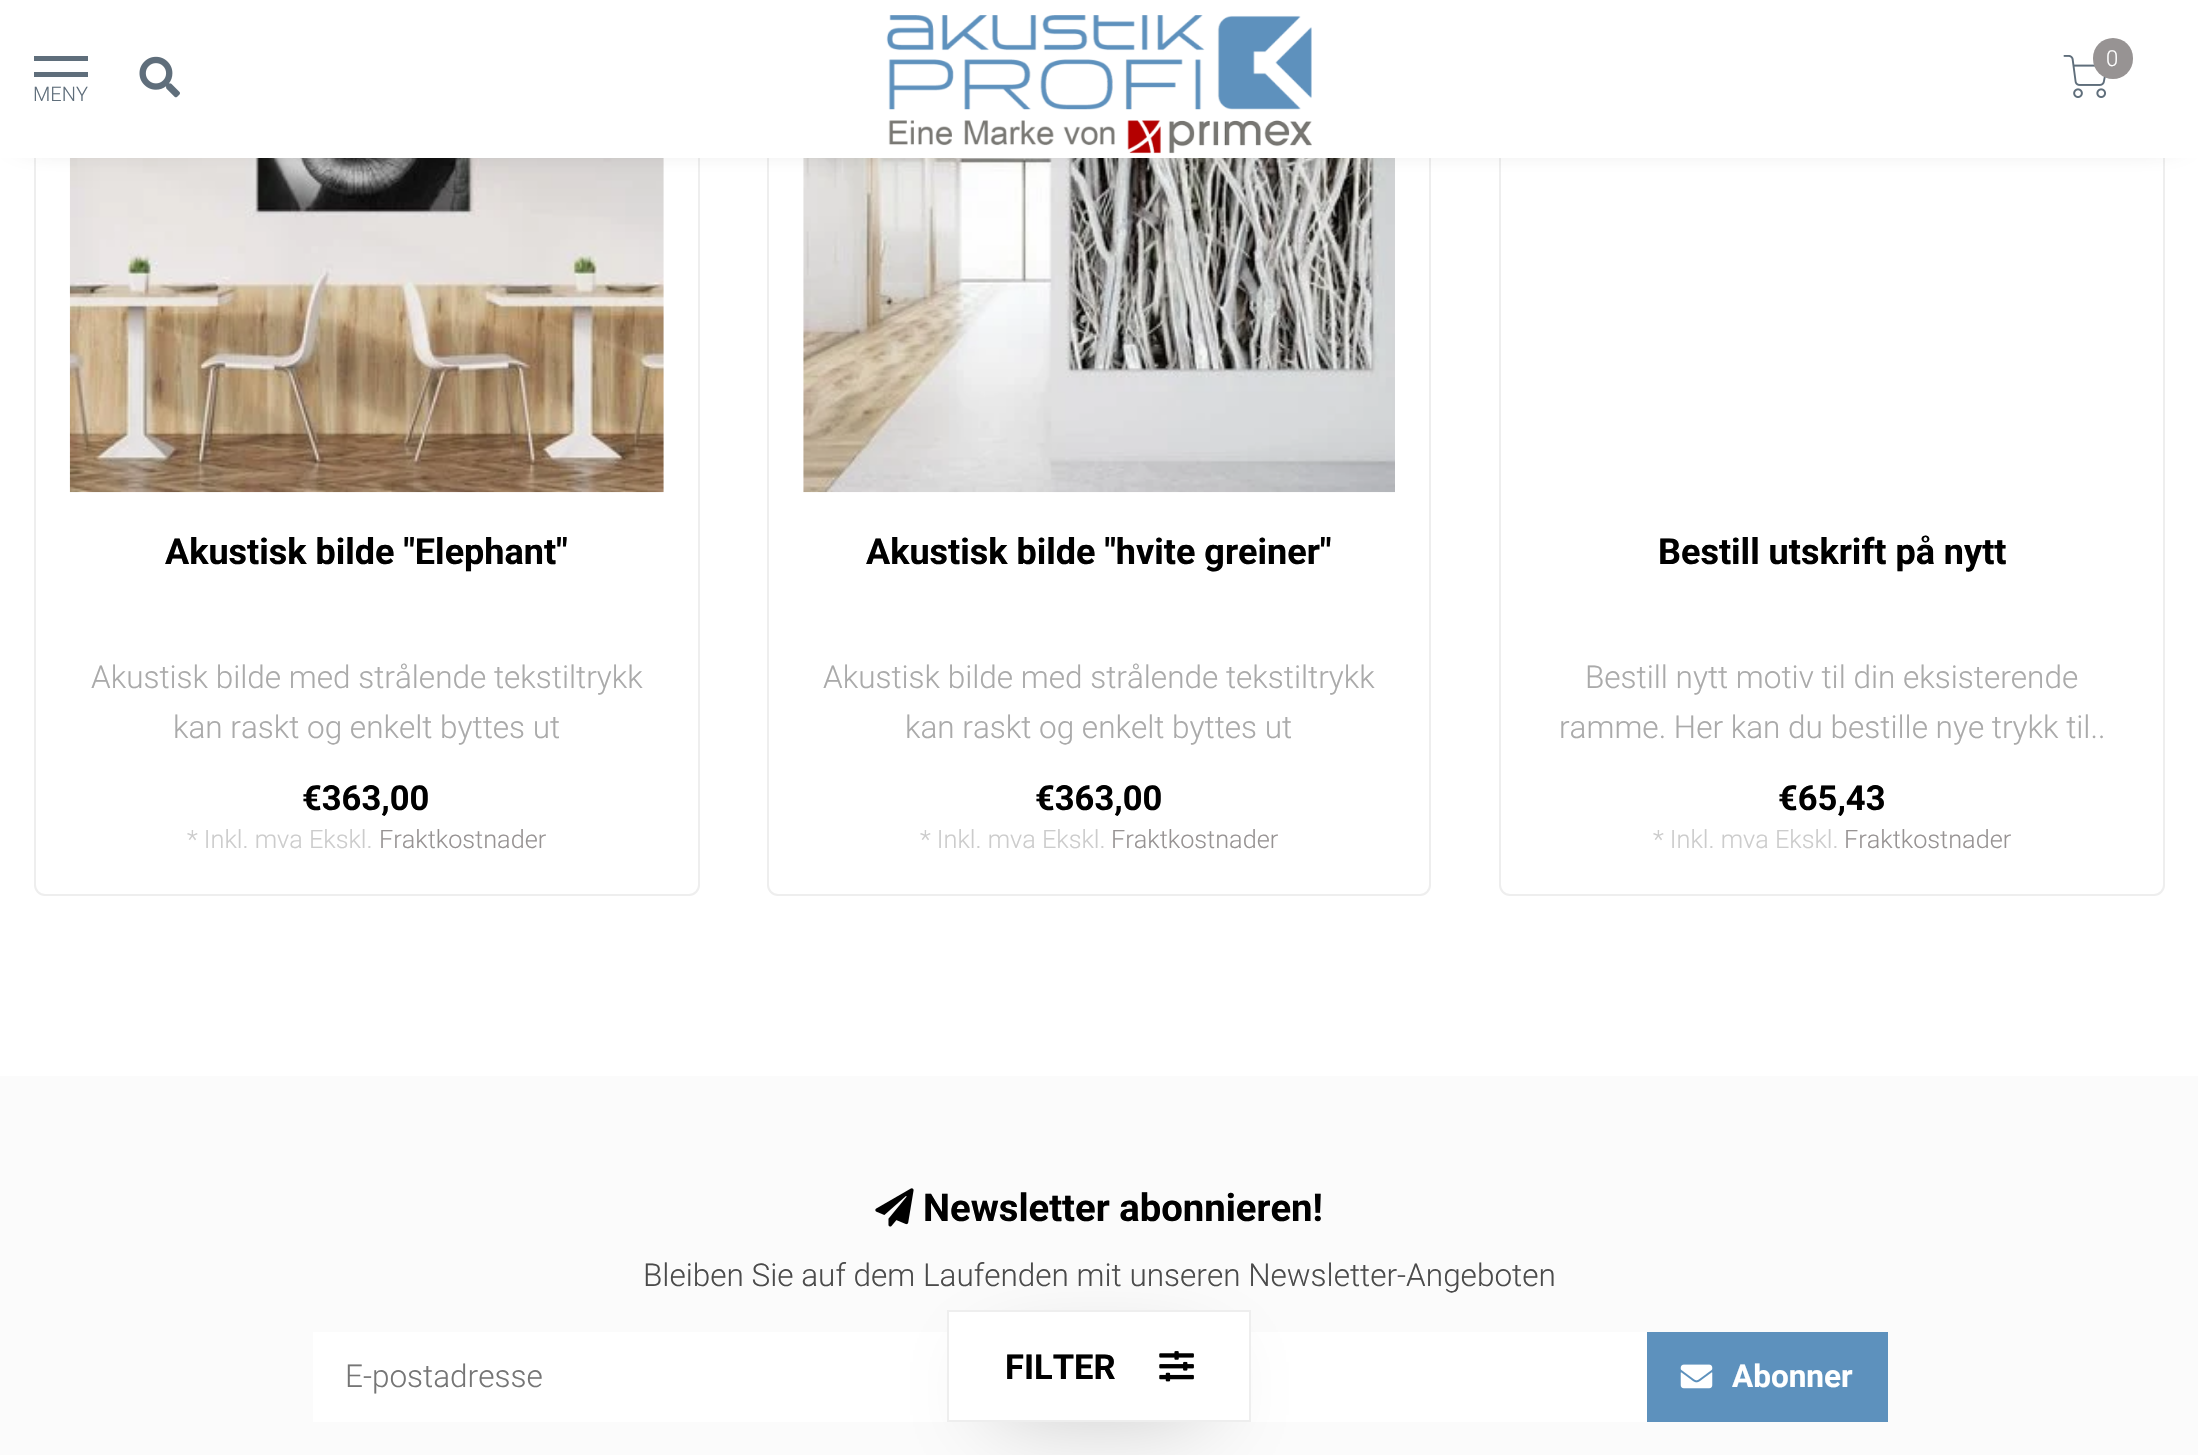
#include "include/core/SkBlurTypes.h"
#include "include/core/SkCanvas.h"
#include "include/core/SkData.h"
#include "include/core/SkFont.h"
#include "include/core/SkFontMgr.h"
#include "include/core/SkImage.h"
#include "include/core/SkMaskFilter.h"
#include "include/core/SkPaint.h"
#include "include/core/SkPathBuilder.h"
#include "include/core/SkTextBlob.h"
#include "include/effects/SkDashPathEffect.h"
#include "include/effects/SkGradientShader.h"
#include "include/utils/SkParsePath.h"

extern sk_sp<SkFontMgr> fontMgr;

static SkFont font(const char* family, int weight, float size, bool italic = false) {
    SkFontStyle style(weight, SkFontStyle::kNormal_Width,
        italic ? SkFontStyle::kItalic_Slant : SkFontStyle::kUpright_Slant);
    SkFont result(fontMgr->matchFamilyStyle(family, style), size);
    result.setSubpixel(true);
    return result;
}

static void drawLabel(SkCanvas* canvas, const char* s, float x, float y, const SkFont& font, SkColor color) {
    SkPaint ink(SkColor4f::FromColor(color));
    ink.setAntiAlias(true);
    canvas->drawString(s, x, y, font, ink);
}

static void fillRect(SkCanvas* canvas, float x, float y, float w, float h, SkColor color) {
    SkPaint ink(SkColor4f::FromColor(color));
    ink.setAntiAlias(true);
    canvas->drawRect(SkRect::MakeXYWH(x, y, w, h), ink);
}

static void fillRRect(SkCanvas* canvas, float x, float y, float w, float h, float radius, SkColor color) {
    SkPaint ink(SkColor4f::FromColor(color));
    ink.setAntiAlias(true);
    canvas->drawRoundRect(SkRect::MakeXYWH(x, y, w, h), radius, radius, ink);
}

static void drawPhoto(SkCanvas* canvas, const char* path, float x, float y, float w, float h) {
    auto image = SkImages::DeferredFromEncodedData(SkData::MakeFromFileName(path));
    canvas->drawImageRect(image, SkRect::MakeXYWH(x, y, w, h), SkSamplingOptions());
}

void draw(SkCanvas* canvas) {
    SkPaint paint;
    paint.setAntiAlias(true);
    canvas->clear(0xFFFFFFFF);
    paint.setStroke(true);
    paint.setStrokeWidth(2);
    paint.setColor(0xFFEEEEEE);
    canvas->drawRoundRect(SkRect::MakeXYWH(35, -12, 664, 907), 10, 10, paint);
    drawPhoto(canvas, "assets/img4.png", 69, 158, 595, 335);
    canvas->drawRoundRect(SkRect::MakeXYWH(768, -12, 662, 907), 10, 10, paint);
    drawPhoto(canvas, "assets/img5.png", 803, 158, 592, 335);
    canvas->drawRoundRect(SkRect::MakeXYWH(1500, -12, 664, 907), 10, 10, paint);
    paint.setStroke(false);
    paint.setColor(0xCC000000);
    paint.setMaskFilter(SkMaskFilter::MakeBlur(kNormal_SkBlurStyle, 18));
    canvas->drawRect(SkRect::MakeXYWH(29, 29, 2140, 99), paint);
    paint.setMaskFilter(nullptr);
    fillRect(canvas, 0, 0, 2198, 158, 0xFFFFFFFF);
    drawPhoto(canvas, "assets/img1.png", 886, 15, 426, 139);
    drawPhoto(canvas, "assets/img2.png", 2063, 55, 44, 43);
    fillRRect(canvas, 2093, 38, 40, 41, 20, 0xFF979393);
    SkFont font1 = font("Roboto", 300, 22);
    drawLabel(canvas, "0", 2106, 66, font1, 0xFFFFFFFF);
    fillRect(canvas, 34, 56, 54, 5, 0xFF5F6E7B);
    fillRect(canvas, 34, 72, 54, 5, 0xFF5F6E7B);
    SkFont font2 = font("Roboto", 300, 20);
    drawLabel(canvas, "MENY", 33, 101, font2, 0xFF5F6E7B);
    drawPhoto(canvas, "assets/img3.png", 139, 56, 41, 42);
    SkFont font3 = font("Roboto", 700, 36);
    drawLabel(canvas, "Akustisk bilde \"Elephant\"", 165, 564, font3, 0xFF000000);
    SkFont font4 = font("Roboto", 300, 31.5f);
    drawLabel(canvas, "Akustisk bilde med strålende tekstiltrykk", 91, 688, font4, 0xFFAAAAAA);
    drawLabel(canvas, "kan raskt og enkelt byttes ut", 173, 738, font4, 0xFFAAAAAA);
    SkFont font5 = font("Roboto", 700, 34.5f);
    drawLabel(canvas, "€363,00", 302, 810, font5, 0xFF000000);
    SkFont font6 = font("Roboto", 300, 25.25f);
    drawLabel(canvas, "* Inkl. mva Ekskl.", 187, 848, font6, 0xFFCCCCCC);
    drawLabel(canvas, "Fraktkostnader", 379, 848, font6, 0xFF979393);
    drawLabel(canvas, "Akustisk bilde \"hvite greiner\"", 866, 564, font3, 0xFF000000);
    drawLabel(canvas, "Akustisk bilde med strålende tekstiltrykk", 823, 688, font4, 0xFFAAAAAA);
    drawLabel(canvas, "kan raskt og enkelt byttes ut", 905, 738, font4, 0xFFAAAAAA);
    drawLabel(canvas, "€363,00", 1035, 810, font5, 0xFF000000);
    drawLabel(canvas, "* Inkl. mva Ekskl.", 920, 848, font6, 0xFFCCCCCC);
    drawLabel(canvas, "Fraktkostnader", 1111, 848, font6, 0xFF979393);
    drawLabel(canvas, "Bestill utskrift på nytt", 1658, 564, font3, 0xFF000000);
    drawLabel(canvas, "Bestill nytt motiv til din eksisterende", 1585, 688, font4, 0xFFAAAAAA);
    drawLabel(canvas, "ramme. Her kan du bestille nye trykk til..", 1559, 738, font4, 0xFFAAAAAA);
    drawLabel(canvas, "€65,43", 1778, 810, font5, 0xFF000000);
    drawLabel(canvas, "* Inkl. mva Ekskl.", 1653, 848, font6, 0xFFCCCCCC);
    drawLabel(canvas, "Fraktkostnader", 1844, 848, font6, 0xFF979393);
    fillRect(canvas, 0, 1076, 2198, 379, 0xFFFBFBFB);
    drawPhoto(canvas, "assets/img6.png", 875, 1188, 39, 39);
    SkFont font7 = font("Roboto", 700, 38.25f);
    drawLabel(canvas, "Newsletter abonnieren!", 923, 1221, font7, 0xFF000000);
    drawLabel(canvas, "Bleiben Sie auf dem Laufenden mit unseren Newsletter-Angeboten", 643, 1286, font4, 0xFF4B4B4B);
    fillRect(canvas, 313, 1332, 1334, 90, 0xFFFFFFFF);
    drawLabel(canvas, "E-postadresse", 345, 1387, font4, 0xFF757575);
    fillRect(canvas, 1647, 1332, 241, 90, 0xFF5D91BD);
    drawPhoto(canvas, "assets/img7.png", 1680, 1364, 33, 25);
    SkFont font8 = font("Roboto", 700, 31.5f);
    drawLabel(canvas, "Abonner", 1732, 1387, font8, 0xFFFFFFFF);
    paint.setColor(0xFF000000);
    paint.setMaskFilter(SkMaskFilter::MakeBlur(kNormal_SkBlurStyle, 45));
    canvas->drawRect(SkRect::MakeXYWH(997, 1382, 205, 13), paint);
    paint.setMaskFilter(nullptr);
    paint.setColor(0xFFFFFFFF);
    canvas->drawRect(SkRect::MakeXYWH(948, 1311, 302, 110), paint);
    paint.setStroke(true);
    paint.setColor(0xFFEEEEEE);
    canvas->drawRect(SkRect::MakeXYWH(948, 1311, 302, 110), paint);
    drawLabel(canvas, "FILTER", 1005, 1379, font5, 0xFF000000);
    drawPhoto(canvas, "assets/img8.png", 1159, 1351, 35, 31);
}
